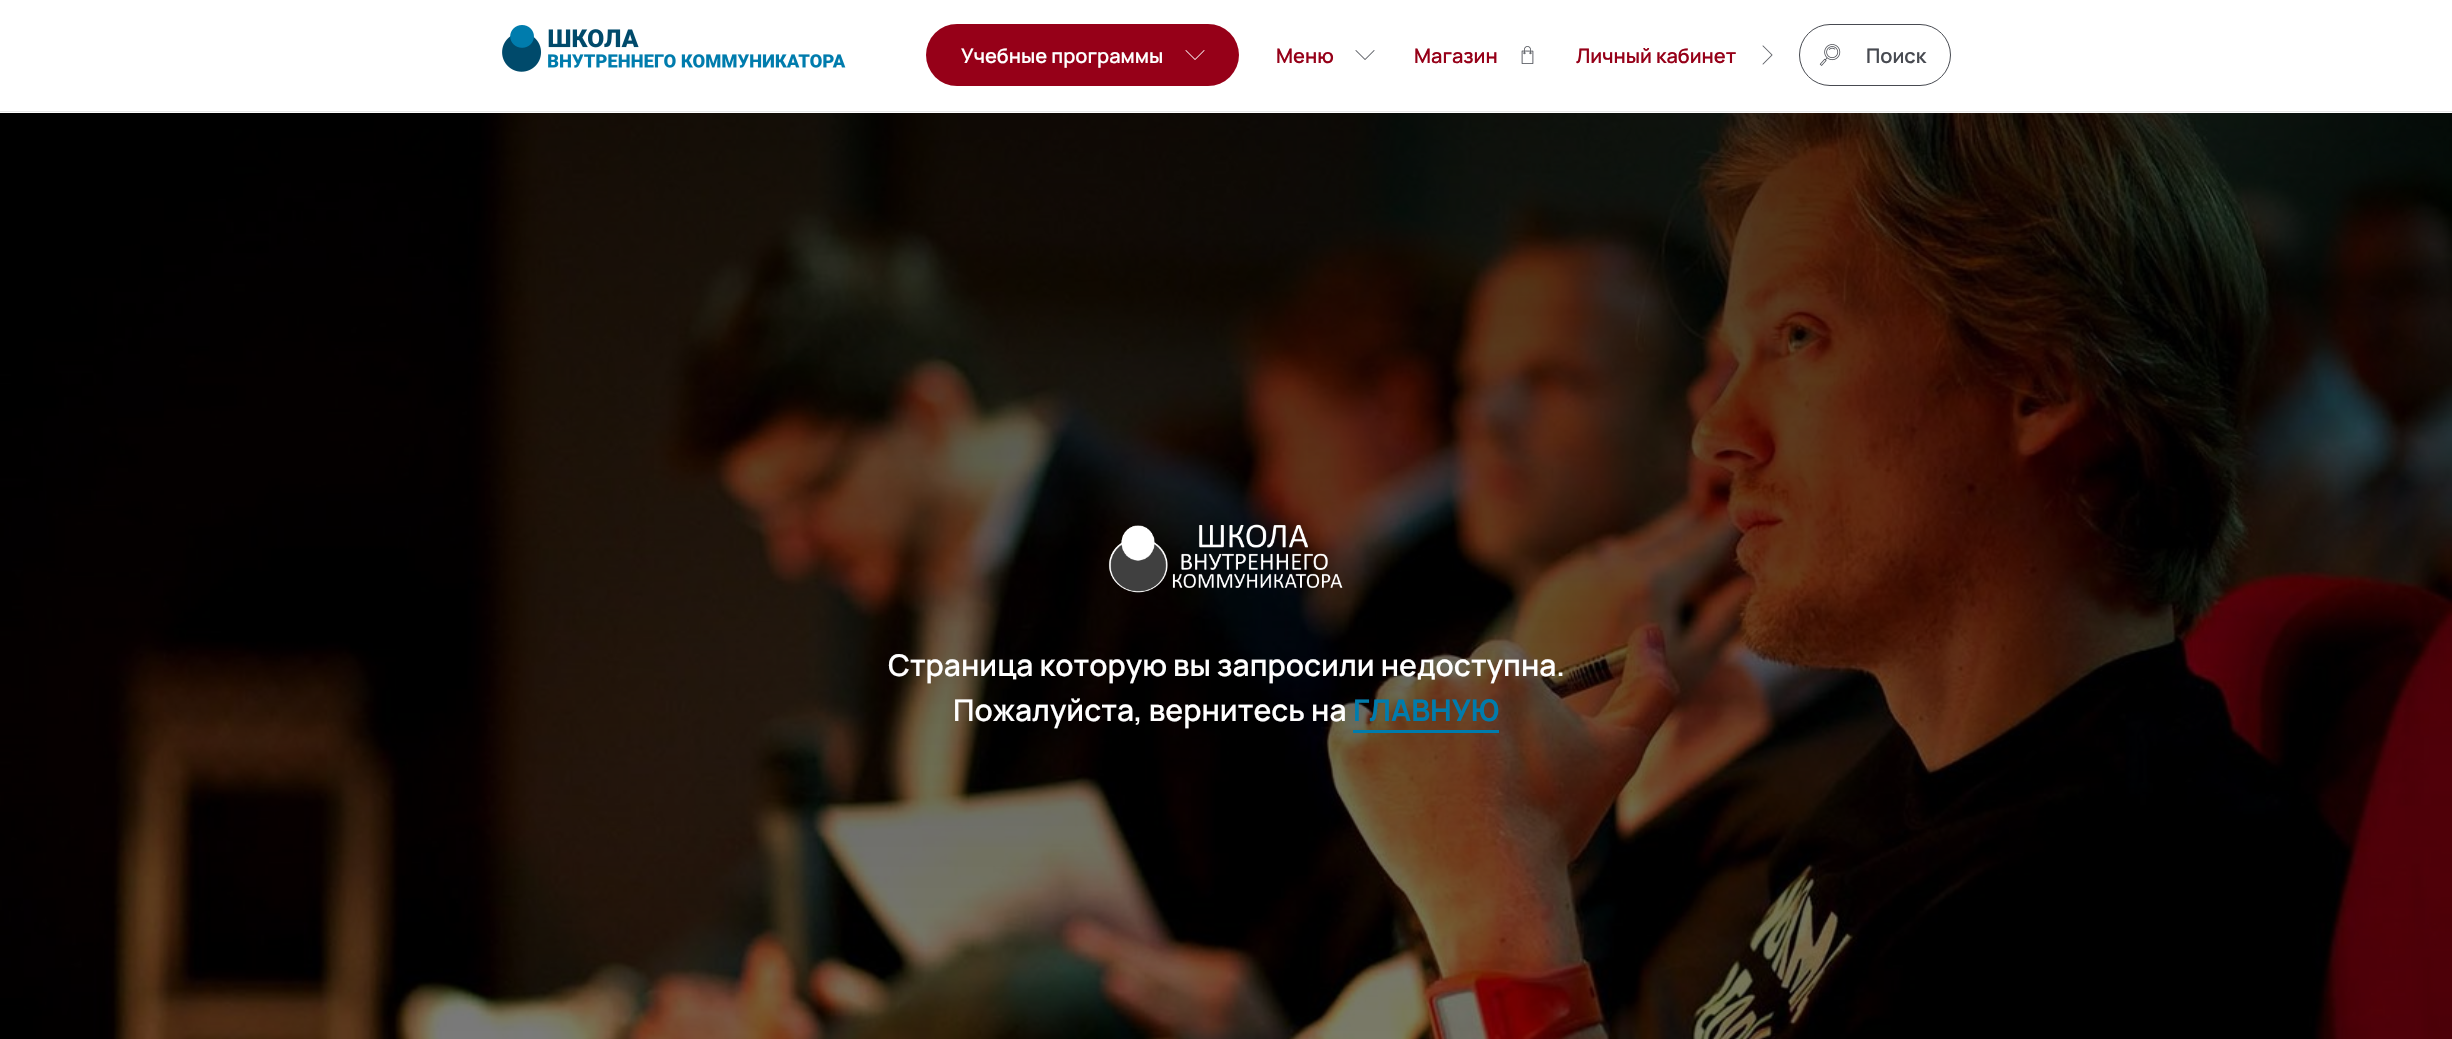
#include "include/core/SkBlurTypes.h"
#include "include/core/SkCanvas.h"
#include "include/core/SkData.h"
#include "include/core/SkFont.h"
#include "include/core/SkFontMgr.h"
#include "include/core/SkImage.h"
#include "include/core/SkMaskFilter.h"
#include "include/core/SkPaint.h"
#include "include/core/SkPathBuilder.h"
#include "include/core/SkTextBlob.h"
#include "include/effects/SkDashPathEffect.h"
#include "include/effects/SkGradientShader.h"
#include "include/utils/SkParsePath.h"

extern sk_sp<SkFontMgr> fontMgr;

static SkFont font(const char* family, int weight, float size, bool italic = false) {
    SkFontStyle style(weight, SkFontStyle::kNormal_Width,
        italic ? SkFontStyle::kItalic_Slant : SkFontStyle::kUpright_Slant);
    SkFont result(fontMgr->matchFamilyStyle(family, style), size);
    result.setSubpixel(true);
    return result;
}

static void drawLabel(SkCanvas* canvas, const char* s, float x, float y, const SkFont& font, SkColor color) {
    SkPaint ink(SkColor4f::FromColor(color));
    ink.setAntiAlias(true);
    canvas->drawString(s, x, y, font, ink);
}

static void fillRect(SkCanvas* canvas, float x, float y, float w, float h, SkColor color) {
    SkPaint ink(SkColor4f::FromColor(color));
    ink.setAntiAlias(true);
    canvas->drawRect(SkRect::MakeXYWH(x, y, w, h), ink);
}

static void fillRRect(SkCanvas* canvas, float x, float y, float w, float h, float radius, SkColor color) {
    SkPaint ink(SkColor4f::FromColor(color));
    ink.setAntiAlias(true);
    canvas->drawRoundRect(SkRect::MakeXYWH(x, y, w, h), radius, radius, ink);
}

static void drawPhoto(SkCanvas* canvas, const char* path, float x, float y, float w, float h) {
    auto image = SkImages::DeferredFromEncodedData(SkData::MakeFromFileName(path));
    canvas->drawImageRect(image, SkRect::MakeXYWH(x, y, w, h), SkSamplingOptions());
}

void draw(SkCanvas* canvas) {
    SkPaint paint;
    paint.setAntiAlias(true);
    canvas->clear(0xFFFFFFFF);
    drawPhoto(canvas, "assets/img1.png", 502, 25, 344, 47);
    fillRRect(canvas, 926, 24, 313, 62, 31, 0xFF960018);
    drawPhoto(canvas, "assets/img6.png", 1819, 44, 22, 22);
    paint.setStroke(true);
    paint.setStrokeWidth(1);
    paint.setColor(0xFF474A51);
    canvas->drawRoundRect(SkRect::MakeXYWH(1799.5f, 24.5f, 151, 61), 30.5f, 30.5f, paint);
    SkFont font1 = font("Manrope", 600, 20);
    drawLabel(canvas, "Учебные программы", 961, 63, font1, 0xFFFFFFFF);
    drawPhoto(canvas, "assets/img2.png", 1185, 50, 20, 10);
    drawLabel(canvas, "Меню", 1276, 63, font1, 0xFF960018);
    drawPhoto(canvas, "assets/img3.png", 1355, 50, 20, 10);
    drawLabel(canvas, "Магазин", 1414, 63, font1, 0xFF960018);
    drawPhoto(canvas, "assets/img4.png", 1521, 46, 13, 18);
    drawLabel(canvas, "Личный кабинет", 1576, 63, font1, 0xFF960018);
    drawPhoto(canvas, "assets/img5.png", 1762, 45, 11, 20);
    drawLabel(canvas, "Поиск", 1866, 63, font1, 0xFF474A51);
    fillRect(canvas, 0, 111, 2452, 1, 0xFFE6E6E6);
    drawPhoto(canvas, "assets/img7.png", 0, 113, 2452, 926);
    drawPhoto(canvas, "assets/img8.png", 1108, 524, 235, 69);
    SkFont font2 = font("Manrope", 600, 30);
    drawLabel(canvas, "Страница которую вы запросили недоступна.", 888, 676, font2, 0xFFFFFFFF);
    drawLabel(canvas, "Пожалуйста, вернитесь на", 953, 721, font2, 0xFFFFFFFF);
    SkFont font3 = font("Manrope", 700, 30);
    drawLabel(canvas, "ГЛАВНУЮ", 1353, 721, font3, 0xFF007CAD);
    fillRect(canvas, 1353, 730, 146, 3, 0xFF007CAD);
}
